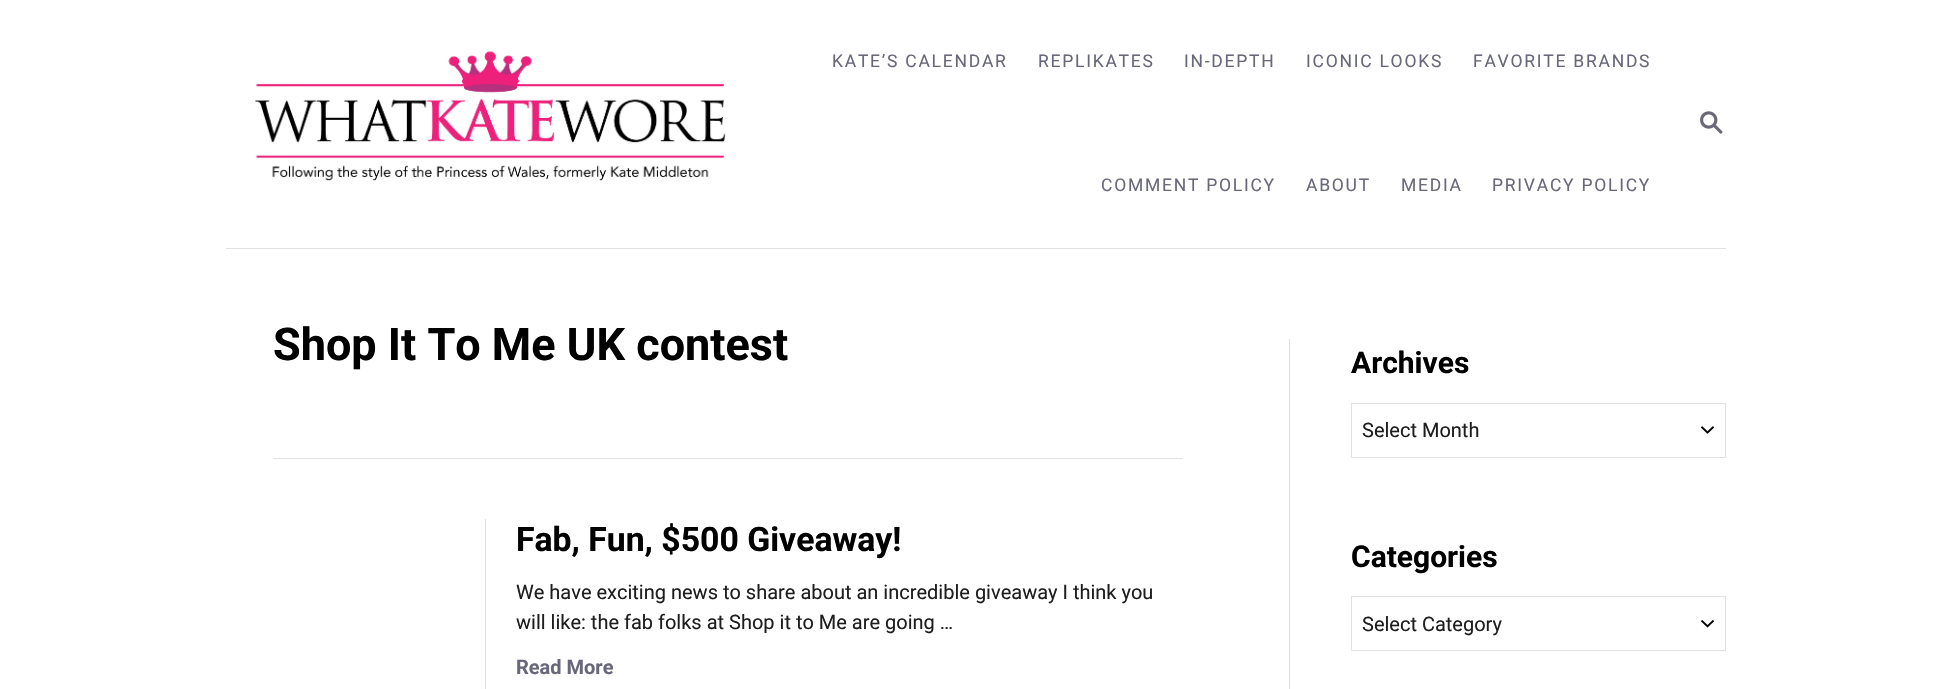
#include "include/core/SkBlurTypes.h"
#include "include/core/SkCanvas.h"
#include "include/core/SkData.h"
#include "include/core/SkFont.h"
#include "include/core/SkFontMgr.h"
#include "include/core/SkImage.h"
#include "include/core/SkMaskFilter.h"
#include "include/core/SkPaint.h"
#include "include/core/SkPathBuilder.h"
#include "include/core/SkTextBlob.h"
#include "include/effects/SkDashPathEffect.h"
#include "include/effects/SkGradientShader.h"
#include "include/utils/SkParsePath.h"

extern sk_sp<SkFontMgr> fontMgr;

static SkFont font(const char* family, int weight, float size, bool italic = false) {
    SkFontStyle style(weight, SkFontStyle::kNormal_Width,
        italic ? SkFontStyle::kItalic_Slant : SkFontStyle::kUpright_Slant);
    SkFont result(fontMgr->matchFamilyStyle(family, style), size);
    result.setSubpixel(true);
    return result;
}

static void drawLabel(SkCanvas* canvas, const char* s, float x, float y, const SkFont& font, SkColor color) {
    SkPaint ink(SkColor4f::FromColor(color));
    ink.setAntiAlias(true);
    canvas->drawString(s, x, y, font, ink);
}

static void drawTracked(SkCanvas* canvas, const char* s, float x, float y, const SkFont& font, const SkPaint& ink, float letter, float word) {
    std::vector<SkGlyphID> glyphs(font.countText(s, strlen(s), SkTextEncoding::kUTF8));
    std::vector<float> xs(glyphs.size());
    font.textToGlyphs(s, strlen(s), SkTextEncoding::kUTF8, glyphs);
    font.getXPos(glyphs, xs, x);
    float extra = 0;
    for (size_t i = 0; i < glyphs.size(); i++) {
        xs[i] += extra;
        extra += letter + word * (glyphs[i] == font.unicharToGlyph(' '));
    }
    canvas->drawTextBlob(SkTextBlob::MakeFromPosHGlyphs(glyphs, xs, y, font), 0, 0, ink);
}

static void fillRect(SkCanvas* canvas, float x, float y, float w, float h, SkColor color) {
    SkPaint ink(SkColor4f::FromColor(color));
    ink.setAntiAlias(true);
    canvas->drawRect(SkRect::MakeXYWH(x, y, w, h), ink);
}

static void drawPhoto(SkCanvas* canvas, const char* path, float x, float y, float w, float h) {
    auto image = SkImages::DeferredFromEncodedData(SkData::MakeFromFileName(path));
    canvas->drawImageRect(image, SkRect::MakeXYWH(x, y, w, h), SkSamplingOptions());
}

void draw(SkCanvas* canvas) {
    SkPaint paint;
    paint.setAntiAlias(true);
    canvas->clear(0xFFFFFFFF);
    fillRect(canvas, 226, 248, 1500, 1, 0xFFE1E1E1);
    drawPhoto(canvas, "assets/img1.png", 255, 51, 471, 130);
    SkFont font1 = font("Roboto", 400, 17.5f);
    paint.setColor(0xFF68687A);
    drawTracked(canvas, "KATE’S CALENDAR", 832, 67, font1, paint, 1.75f, 0);
    drawTracked(canvas, "REPLIKATES", 1038, 67, font1, paint, 1.75f, 0);
    drawTracked(canvas, "IN-DEPTH", 1184, 67, font1, paint, 1.75f, 0);
    drawTracked(canvas, "ICONIC LOOKS", 1306, 67, font1, paint, 1.75f, 0);
    drawTracked(canvas, "FAVORITE BRANDS", 1473, 67, font1, paint, 1.75f, 0);
    drawTracked(canvas, "COMMENT POLICY", 1101, 191, font1, paint, 1.75f, 0);
    drawTracked(canvas, "ABOUT", 1306, 191, font1, paint, 1.75f, 0);
    drawTracked(canvas, "MEDIA", 1401, 191, font1, paint, 1.75f, 0);
    drawTracked(canvas, "PRIVACY POLICY", 1492, 191, font1, paint, 1.75f, 0);
    drawPhoto(canvas, "assets/img2.png", 1700, 111, 23, 23);
    fillRect(canvas, 273, 458, 910, 1, 0xFFE1E1E1);
    SkFont font2 = font("Roboto", 700, 45);
    drawLabel(canvas, "Shop It To Me UK contest", 273, 360, font2, 0xFF000000);
    fillRect(canvas, 485, 519, 1, 170, 0xFFE1E1E1);
    SkFont font3 = font("Roboto", 700, 33.75f);
    drawLabel(canvas, "Fab, Fun, $500 Giveaway!", 516, 551, font3, 0xFF000000);
    SkFont font4 = font("Roboto", 400, 20);
    drawLabel(canvas, "We have exciting news to share about an incredible giveaway I think you", 516, 599, font4, 0xFF1E1E1E);
    drawLabel(canvas, "will like: the fab folks at Shop it to Me are going …", 516, 629, font4, 0xFF1E1E1E);
    SkFont font5 = font("Roboto", 700, 20);
    drawLabel(canvas, "Read More", 516, 674, font5, 0xFF68687A);
    fillRect(canvas, 1289, 339, 1, 350, 0xFFE1E1E1);
    SkFont font6 = font("Roboto", 700, 30);
    drawLabel(canvas, "Archives", 1351, 373, font6, 0xFF000000);
    drawPhoto(canvas, "assets/img3.png", 1701, 426, 13, 8);
    paint.setStroke(true);
    paint.setStrokeWidth(1);
    paint.setColor(0xFFE1E1E1);
    canvas->drawRect(SkRect::MakeXYWH(1351.5f, 403.5f, 374, 54), paint);
    drawLabel(canvas, "Select Month", 1362, 437, font4, 0xFF1E1E1E);
    drawLabel(canvas, "Categories", 1351, 567, font6, 0xFF000000);
    drawPhoto(canvas, "assets/img4.png", 1701, 620, 13, 8);
    canvas->drawRect(SkRect::MakeXYWH(1351.5f, 596.5f, 374, 54), paint);
    drawLabel(canvas, "Select Category", 1362, 631, font4, 0xFF1E1E1E);
}
